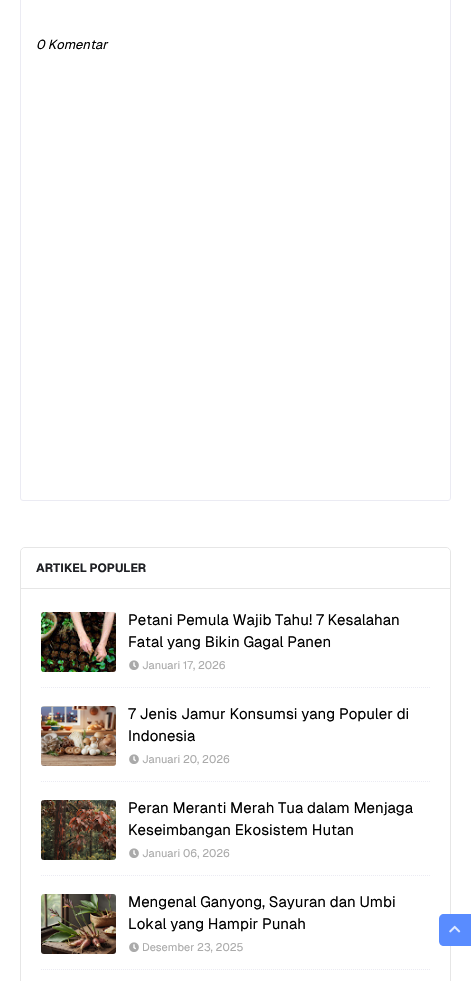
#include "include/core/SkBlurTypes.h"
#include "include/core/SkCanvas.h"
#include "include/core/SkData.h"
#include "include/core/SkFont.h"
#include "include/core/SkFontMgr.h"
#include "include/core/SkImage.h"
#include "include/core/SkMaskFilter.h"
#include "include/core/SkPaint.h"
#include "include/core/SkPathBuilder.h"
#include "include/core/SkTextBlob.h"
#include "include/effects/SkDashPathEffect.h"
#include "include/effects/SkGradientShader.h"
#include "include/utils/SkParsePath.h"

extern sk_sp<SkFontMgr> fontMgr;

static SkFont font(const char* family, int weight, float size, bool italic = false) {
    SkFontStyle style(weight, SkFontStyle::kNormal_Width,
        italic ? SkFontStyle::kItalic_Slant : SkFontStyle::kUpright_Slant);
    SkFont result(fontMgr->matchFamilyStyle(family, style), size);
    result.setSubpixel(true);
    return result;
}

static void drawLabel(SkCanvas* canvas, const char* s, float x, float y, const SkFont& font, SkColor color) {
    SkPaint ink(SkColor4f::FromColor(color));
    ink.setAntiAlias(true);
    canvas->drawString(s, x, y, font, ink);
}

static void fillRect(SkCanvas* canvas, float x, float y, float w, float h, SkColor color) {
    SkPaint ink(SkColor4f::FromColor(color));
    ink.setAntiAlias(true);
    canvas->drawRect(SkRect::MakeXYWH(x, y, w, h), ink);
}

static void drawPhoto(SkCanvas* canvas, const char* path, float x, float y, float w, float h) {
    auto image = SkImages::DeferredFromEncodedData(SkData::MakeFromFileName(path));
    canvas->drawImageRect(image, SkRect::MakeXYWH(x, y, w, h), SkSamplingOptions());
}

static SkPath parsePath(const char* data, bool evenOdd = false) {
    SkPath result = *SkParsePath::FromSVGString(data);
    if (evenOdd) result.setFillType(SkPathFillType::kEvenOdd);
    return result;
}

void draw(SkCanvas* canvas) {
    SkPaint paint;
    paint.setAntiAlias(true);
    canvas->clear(0xFFFFFFFF);
    paint.setStroke(true);
    paint.setStrokeWidth(1);
    paint.setColor(0xFFEBEBF3);
    canvas->drawRoundRect(SkRect::MakeXYWH(20.5f, -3.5f, 430, 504), 2.5f, 2.5f, paint);
    SkFont font1 = font("Geist", 400, 13, true);
    drawLabel(canvas, "0 Komentar", 36, 49, font1, 0xFF000000);
    paint.setColor(0xFFE6E6E6);
    canvas->drawRoundRect(SkRect::MakeXYWH(20.5f, 547.5f, 430, 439), 4.5f, 4.5f, paint);
    paint.setStroke(false);
    paint.setColor(0xFFFFFFFF);
    canvas->drawPath(parsePath("M25 548H446C448 548 450 550 450 552V589H21V552C21 550 23 548 25 548Z"), paint);
    fillRect(canvas, 21, 588, 429, 1, 0xFFE6E6E6);
    SkFont font2 = font("Geist", 700, 12);
    drawLabel(canvas, "ARTIKEL POPULER", 36, 572, font2, 0xFF1F2024);
    drawPhoto(canvas, "assets/img1.png", 41, 612, 75, 60);
    SkFont font3 = font("Geist", 400, 15);
    drawLabel(canvas, "Petani Pemula Wajib Tahu! 7 Kesalahan", 128, 625, font3, 0xFF000000);
    drawLabel(canvas, "Fatal yang Bikin Gagal Panen", 128, 647, font3, 0xFF000000);
    drawPhoto(canvas, "assets/img2.png", 129, 660, 10, 10);
    SkFont font4 = font("Geist", 400, 11);
    drawLabel(canvas, "Januari 17, 2026", 142, 669, font4, 0xFFAAAAAA);
    paint.setStroke(true);
    paint.setColor(0xFFEBEBF3);
    paint.setPathEffect(SkDashPathEffect::Make({{1, 1}}, 0));
    canvas->drawPath(parsePath("M41 687.5H430"), paint);
    paint.setPathEffect(nullptr);
    drawPhoto(canvas, "assets/img3.png", 41, 706, 75, 60);
    drawLabel(canvas, "7 Jenis Jamur Konsumsi yang Populer di", 128, 719, font3, 0xFF000000);
    drawLabel(canvas, "Indonesia", 128, 741, font3, 0xFF000000);
    drawPhoto(canvas, "assets/img2.png", 129, 754, 10, 10);
    drawLabel(canvas, "Januari 20, 2026", 142, 763, font4, 0xFFAAAAAA);
    paint.setPathEffect(SkDashPathEffect::Make({{1, 1}}, 0));
    canvas->drawPath(parsePath("M41 781.5H430"), paint);
    paint.setPathEffect(nullptr);
    drawPhoto(canvas, "assets/img4.png", 41, 800, 75, 60);
    drawLabel(canvas, "Peran Meranti Merah Tua dalam Menjaga", 128, 813, font3, 0xFF000000);
    drawLabel(canvas, "Keseimbangan Ekosistem Hutan", 128, 835, font3, 0xFF000000);
    drawPhoto(canvas, "assets/img2.png", 129, 848, 10, 10);
    drawLabel(canvas, "Januari 06, 2026", 142, 857, font4, 0xFFAAAAAA);
    paint.setPathEffect(SkDashPathEffect::Make({{1, 1}}, 0));
    canvas->drawPath(parsePath("M41 875.5H430"), paint);
    paint.setPathEffect(nullptr);
    drawPhoto(canvas, "assets/img5.png", 41, 894, 75, 60);
    drawLabel(canvas, "Mengenal Ganyong, Sayuran dan Umbi", 128, 907, font3, 0xFF000000);
    drawLabel(canvas, "Lokal yang Hampir Punah", 128, 929, font3, 0xFF000000);
    drawPhoto(canvas, "assets/img2.png", 129, 942, 10, 10);
    drawLabel(canvas, "Desember 23, 2025", 142, 951, font4, 0xFFAAAAAA);
    paint.setPathEffect(SkDashPathEffect::Make({{1, 1}}, 0));
    canvas->drawPath(parsePath("M41 969.5H430"), paint);
    paint.setPathEffect(nullptr);
    paint.setStroke(false);
    paint.setColor(0xFF598CFF);
    canvas->drawPath(parsePath("M444 914H471V946H444C441 946 439 944 439 941V919C439 916 441 914 444 914Z"), paint);
    drawPhoto(canvas, "assets/img6.png", 449, 925, 12, 8);
}
